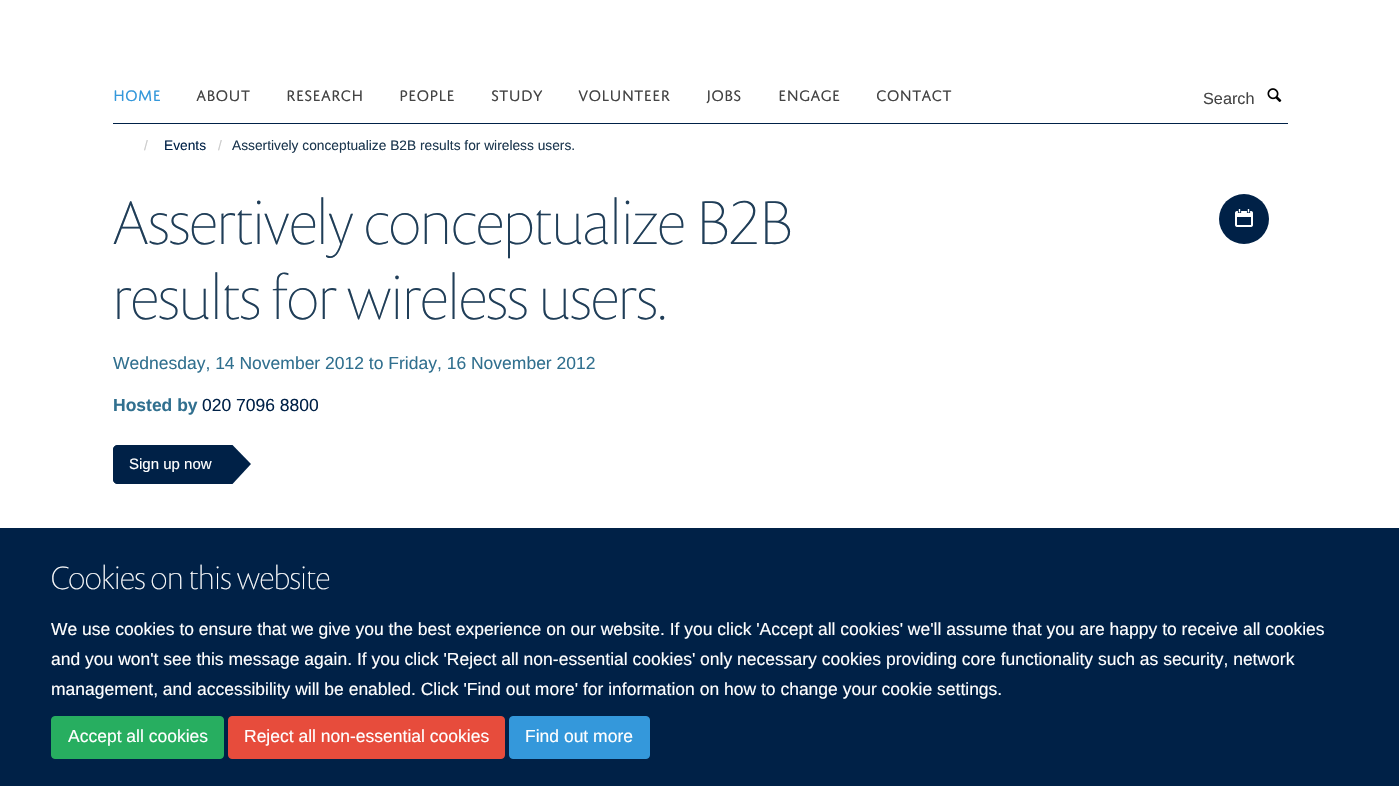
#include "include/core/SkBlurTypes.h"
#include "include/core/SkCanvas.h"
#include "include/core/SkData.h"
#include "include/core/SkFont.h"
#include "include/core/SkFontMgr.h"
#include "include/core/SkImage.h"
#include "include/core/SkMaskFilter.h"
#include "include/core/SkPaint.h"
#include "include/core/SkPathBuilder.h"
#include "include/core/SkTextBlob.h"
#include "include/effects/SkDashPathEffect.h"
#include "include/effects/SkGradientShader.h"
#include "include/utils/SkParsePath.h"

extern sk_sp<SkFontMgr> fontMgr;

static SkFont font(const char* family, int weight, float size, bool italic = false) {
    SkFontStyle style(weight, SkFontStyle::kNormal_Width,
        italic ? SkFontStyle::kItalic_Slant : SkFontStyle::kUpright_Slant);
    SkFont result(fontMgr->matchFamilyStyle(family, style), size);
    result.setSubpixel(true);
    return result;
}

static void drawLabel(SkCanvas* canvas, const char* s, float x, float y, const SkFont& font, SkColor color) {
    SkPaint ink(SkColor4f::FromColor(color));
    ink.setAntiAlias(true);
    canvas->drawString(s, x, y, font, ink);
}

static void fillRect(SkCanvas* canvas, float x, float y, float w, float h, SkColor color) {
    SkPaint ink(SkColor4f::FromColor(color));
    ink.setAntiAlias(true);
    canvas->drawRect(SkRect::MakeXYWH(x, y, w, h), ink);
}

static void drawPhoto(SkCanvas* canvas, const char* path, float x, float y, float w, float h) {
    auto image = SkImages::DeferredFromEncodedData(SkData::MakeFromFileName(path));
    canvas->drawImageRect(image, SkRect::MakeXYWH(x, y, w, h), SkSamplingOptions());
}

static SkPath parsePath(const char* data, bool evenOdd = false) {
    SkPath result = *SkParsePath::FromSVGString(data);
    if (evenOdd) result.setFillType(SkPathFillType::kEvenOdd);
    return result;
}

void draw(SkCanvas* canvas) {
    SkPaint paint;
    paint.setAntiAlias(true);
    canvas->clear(0xFFFFFFFF);
    fillRect(canvas, 113, 123, 1175, 1, 0xFF002147);
    SkFont font1 = font("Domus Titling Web", 400, 16.25f);
    drawLabel(canvas, "HOME", 113, 101, font1, 0xFF3498DB);
    drawLabel(canvas, "ABOUT", 196, 101, font1, 0xFF444444);
    drawLabel(canvas, "RESEARCH", 286, 101, font1, 0xFF444444);
    drawLabel(canvas, "PEOPLE", 399, 101, font1, 0xFF444444);
    drawLabel(canvas, "STUDY", 491, 101, font1, 0xFF444444);
    drawLabel(canvas, "VOLUNTEER", 578, 101, font1, 0xFF444444);
    drawLabel(canvas, "JOBS", 706, 101, font1, 0xFF444444);
    drawLabel(canvas, "ENGAGE", 778, 101, font1, 0xFF444444);
    drawLabel(canvas, "CONTACT", 876, 101, font1, 0xFF444444);
    SkFont font2 = font("Liberation Sans", 400, 16.25f);
    drawLabel(canvas, "Search", 1203, 104, font2, 0xFF444444);
    drawPhoto(canvas, "assets/img1.png", 1267, 88, 15, 14);
    SkFont font3 = font("Liberation Sans", 400, 13.75f);
    drawLabel(canvas, "/", 144, 150, font3, 0xFFCCCCCC);
    drawLabel(canvas, "Events", 164, 150, font3, 0xFF002147);
    drawLabel(canvas, "/", 218, 150, font3, 0xFFCCCCCC);
    drawLabel(canvas, "Assertively conceptualize B2B results for wireless users.", 232, 150, font3, 0xFF1D3850);
    SkFont font4 = font("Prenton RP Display", 100, 62.5f);
    drawLabel(canvas, "Assertively conceptualize B2B", 113, 244, font4, 0xFF203E58);
    drawLabel(canvas, "results for wireless users.", 113, 319, font4, 0xFF203E58);
    SkFont font5 = font("Liberation Sans", 400, 17.5f);
    drawLabel(canvas, "Wednesday, 14 November 2012 to Friday, 16 November 2012", 113, 369, font5, 0xFF31708F);
    SkFont font6 = font("Liberation Sans", 700, 17.5f);
    drawLabel(canvas, "Hosted by", 113, 411, font6, 0xFF31708F);
    drawLabel(canvas, "020 7096 8800", 202, 411, font5, 0xFF002147);
    paint.setColor(0xFF002147);
    canvas->drawPath(parsePath("M117 445.5H232.5V483.5H117C115 483.5 113.5 482 113.5 480V449C113.5 447 115 445.5 117 445.5Z"), paint);
    paint.setStroke(true);
    paint.setStrokeWidth(1);
    canvas->drawPath(parsePath("M117 445.5H232.5V483.5H117C115 483.5 113.5 482 113.5 480V449C113.5 447 115 445.5 117 445.5Z"), paint);
    SkFont font7 = font("Liberation Sans", 400, 15);
    drawLabel(canvas, "Sign up now", 129, 469, font7, 0xFFFFFFFF);
    paint.setStroke(false);
    canvas->drawPath(parsePath("M232.5 484V445L251 464Z"), paint);
    canvas->drawCircle(1244, 219, 25, paint);
    drawPhoto(canvas, "assets/img2.png", 1235, 209, 18, 18);
    fillRect(canvas, 0, 528, 1399, 258, 0xFF002147);
    SkFont font8 = font("Prenton RP Display", 100, 32.5f);
    drawLabel(canvas, "Cookies on this website", 51, 589, font8, 0xFFFFFFFF);
    drawLabel(canvas, "We use cookies to ensure that we give you the best experience on our website. If you click 'Accept all cookies' we'll assume that you are happy to receive all cookies", 51, 635, font5, 0xFFFFFFFF);
    drawLabel(canvas, "and you won't see this message again. If you click 'Reject all non-essential cookies' only necessary cookies providing core functionality such as security, network", 51, 665, font5, 0xFFFFFFFF);
    drawLabel(canvas, "management, and accessibility will be enabled. Click 'Find out more' for information on how to change your cookie settings.", 51, 695, font5, 0xFFFFFFFF);
    paint.setColor(0xFF27AE60);
    canvas->drawRoundRect(SkRect::MakeXYWH(51.5f, 716.5f, 172, 42), 3.5f, 3.5f, paint);
    paint.setStroke(true);
    canvas->drawRoundRect(SkRect::MakeXYWH(51.5f, 716.5f, 172, 42), 3.5f, 3.5f, paint);
    drawLabel(canvas, "Accept all cookies", 68, 742, font5, 0xFFFFFFFF);
    paint.setStroke(false);
    paint.setColor(0xFFE74C3C);
    canvas->drawRoundRect(SkRect::MakeXYWH(228.5f, 716.5f, 276, 42), 3.5f, 3.5f, paint);
    paint.setStroke(true);
    canvas->drawRoundRect(SkRect::MakeXYWH(228.5f, 716.5f, 276, 42), 3.5f, 3.5f, paint);
    drawLabel(canvas, "Reject all non-essential cookies", 244, 742, font5, 0xFFFFFFFF);
    paint.setStroke(false);
    paint.setColor(0xFF3498DB);
    canvas->drawRoundRect(SkRect::MakeXYWH(509.5f, 716.5f, 140, 42), 3.5f, 3.5f, paint);
    paint.setStroke(true);
    canvas->drawRoundRect(SkRect::MakeXYWH(509.5f, 716.5f, 140, 42), 3.5f, 3.5f, paint);
    drawLabel(canvas, "Find out more", 525, 742, font5, 0xFFFFFFFF);
}
